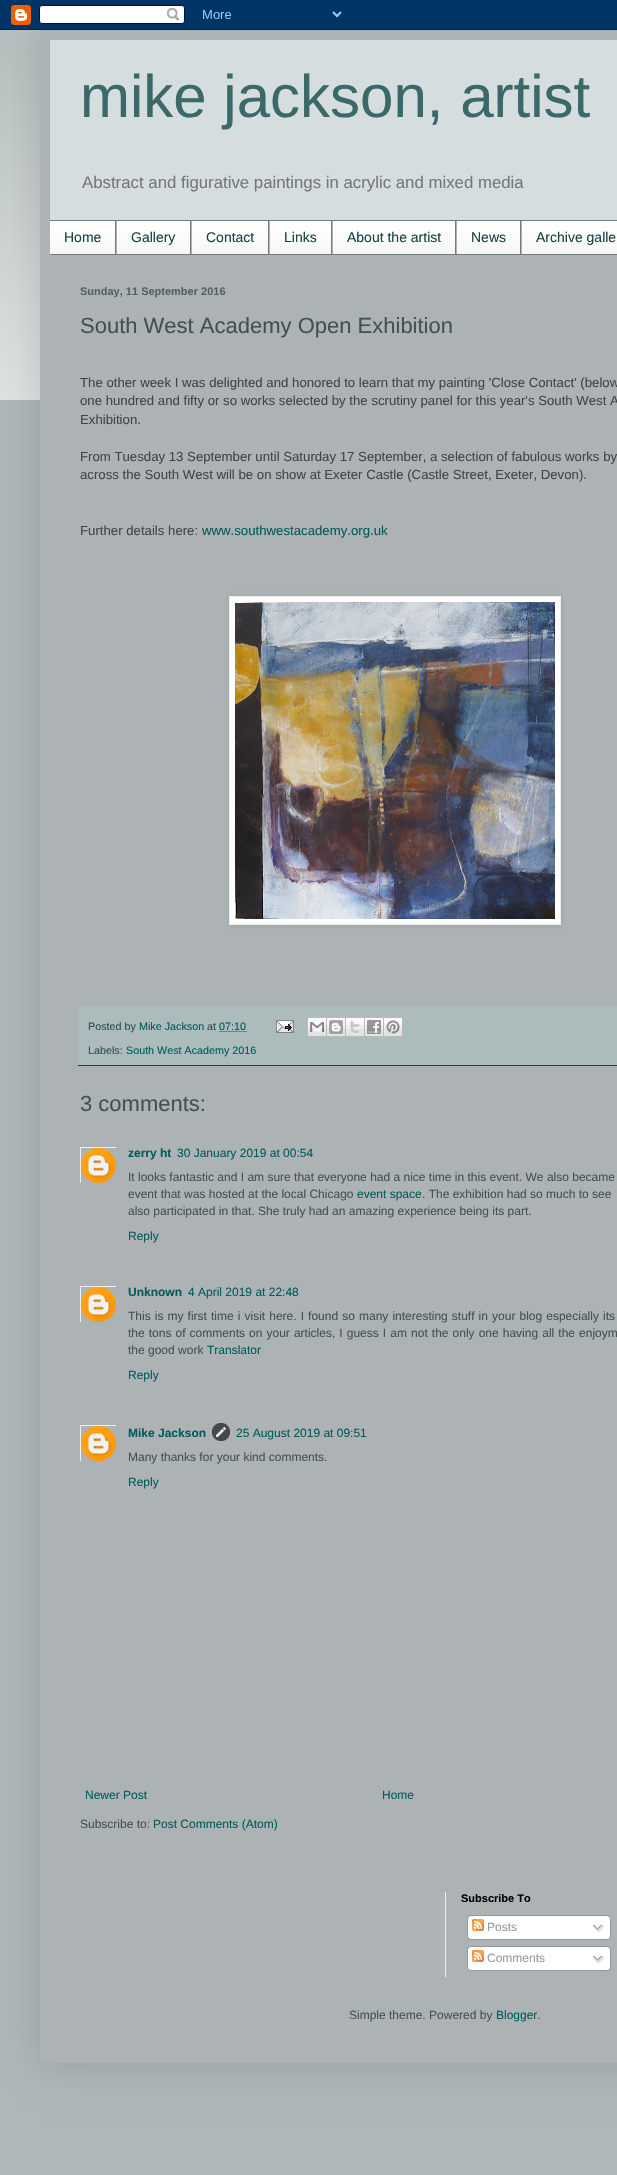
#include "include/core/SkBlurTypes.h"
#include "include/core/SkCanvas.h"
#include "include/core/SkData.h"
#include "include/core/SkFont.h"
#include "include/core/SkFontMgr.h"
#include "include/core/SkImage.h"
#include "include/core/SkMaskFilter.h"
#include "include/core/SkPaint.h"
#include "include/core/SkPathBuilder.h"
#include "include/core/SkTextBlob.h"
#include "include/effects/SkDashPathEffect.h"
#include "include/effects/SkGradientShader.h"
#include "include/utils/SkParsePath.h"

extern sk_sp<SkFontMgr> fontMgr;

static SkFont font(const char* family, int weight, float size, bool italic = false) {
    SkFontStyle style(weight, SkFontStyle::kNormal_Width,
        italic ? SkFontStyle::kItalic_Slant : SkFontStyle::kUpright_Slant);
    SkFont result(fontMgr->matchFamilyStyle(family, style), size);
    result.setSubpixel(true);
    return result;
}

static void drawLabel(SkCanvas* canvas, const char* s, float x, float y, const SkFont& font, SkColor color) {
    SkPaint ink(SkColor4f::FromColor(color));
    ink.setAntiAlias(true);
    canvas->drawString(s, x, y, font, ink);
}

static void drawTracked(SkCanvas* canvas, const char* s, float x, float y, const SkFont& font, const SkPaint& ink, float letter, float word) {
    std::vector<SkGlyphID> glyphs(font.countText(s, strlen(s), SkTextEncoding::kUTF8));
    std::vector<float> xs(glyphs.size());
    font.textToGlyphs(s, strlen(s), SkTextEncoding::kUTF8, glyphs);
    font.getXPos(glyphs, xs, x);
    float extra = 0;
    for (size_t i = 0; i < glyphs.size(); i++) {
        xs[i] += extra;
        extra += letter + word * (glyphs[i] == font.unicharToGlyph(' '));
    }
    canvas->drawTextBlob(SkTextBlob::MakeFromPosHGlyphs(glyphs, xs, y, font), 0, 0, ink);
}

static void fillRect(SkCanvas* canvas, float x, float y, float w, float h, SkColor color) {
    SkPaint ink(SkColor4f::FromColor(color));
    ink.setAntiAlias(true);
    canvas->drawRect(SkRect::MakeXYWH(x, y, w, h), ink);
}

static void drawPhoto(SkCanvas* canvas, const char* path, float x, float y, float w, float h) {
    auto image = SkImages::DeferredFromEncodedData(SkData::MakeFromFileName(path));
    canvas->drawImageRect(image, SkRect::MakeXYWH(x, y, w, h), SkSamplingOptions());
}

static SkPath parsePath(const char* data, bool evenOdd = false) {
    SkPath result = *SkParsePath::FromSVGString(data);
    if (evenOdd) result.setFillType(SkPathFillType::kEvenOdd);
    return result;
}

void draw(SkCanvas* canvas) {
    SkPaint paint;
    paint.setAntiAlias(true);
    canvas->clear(0xFFAFB8B8);
    drawPhoto(canvas, "assets/img2.png", 0, 30, 40, 370);
    paint.setColor(0x26000000);
    paint.setMaskFilter(SkMaskFilter::MakeBlur(kNormal_SkBlurStyle, 20));
    canvas->drawRect(SkRect::MakeXYWH(40, 30, 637, 2033), paint);
    paint.setMaskFilter(nullptr);
    drawPhoto(canvas, "assets/img1.png", 0, 0, 617, 30);
    fillRect(canvas, 40, 30, 577, 2033, 0xFFADB3B4);
    fillRect(canvas, 50, 40, 567, 180, 0xFFD5DDDF);
    SkFont font1 = font("Liberation Sans", 400, 60);
    drawLabel(canvas, "mike jackson, artist", 80, 117, font1, 0xFF3B6868);
    SkFont font2 = font("Liberation Sans", 400, 16.8f);
    drawLabel(canvas, "Abstract and figurative paintings in acrylic and mixed media", 82, 188, font2, 0xFF777777);
    fillRect(canvas, 50, 222, 567, 32, 0xFFF5F5F5);
    drawPhoto(canvas, "assets/img3.png", 50, 221, 567, 33);
    fillRect(canvas, 50, 220, 567, 1, 0xFF797979);
    fillRect(canvas, 50, 254, 567, 1, 0xFF797979);
    fillRect(canvas, 115, 221, 1, 33, 0xFF797979);
    SkFont font3 = font("Liberation Sans", 400, 14);
    drawLabel(canvas, "Home", 64, 242, font3, 0xFF1B4444);
    fillRect(canvas, 190, 221, 1, 33, 0xFF797979);
    fillRect(canvas, 116, 221, 1, 33, 0xFFADB3B4);
    drawLabel(canvas, "Gallery", 131, 242, font3, 0xFF1B4444);
    fillRect(canvas, 268, 221, 1, 33, 0xFF797979);
    fillRect(canvas, 191, 221, 1, 33, 0xFFADB3B4);
    drawLabel(canvas, "Contact", 206, 242, font3, 0xFF1B4444);
    fillRect(canvas, 331, 221, 1, 33, 0xFF797979);
    fillRect(canvas, 269, 221, 1, 33, 0xFFADB3B4);
    drawLabel(canvas, "Links", 284, 242, font3, 0xFF1B4444);
    fillRect(canvas, 455, 221, 1, 33, 0xFF797979);
    fillRect(canvas, 332, 221, 1, 33, 0xFFADB3B4);
    drawLabel(canvas, "About the artist", 347, 242, font3, 0xFF1B4444);
    fillRect(canvas, 520, 221, 1, 33, 0xFF797979);
    fillRect(canvas, 456, 221, 1, 33, 0xFFADB3B4);
    drawLabel(canvas, "News", 471, 242, font3, 0xFF1B4444);
    fillRect(canvas, 521, 221, 1, 33, 0xFFADB3B4);
    drawLabel(canvas, "Archive galle", 536, 242, font3, 0xFF1B4444);
    SkFont font4 = font("Liberation Sans", 700, 11);
    drawLabel(canvas, "Sunday, 11 September 2016", 80, 295, font4, 0xFF576161);
    SkFont font5 = font("Liberation Sans", 400, 22);
    drawLabel(canvas, "South West Academy Open Exhibition", 80, 333, font5, 0xFF475050);
    SkFont font6 = font("Liberation Sans", 400, 13.2f);
    drawLabel(canvas, "The other week I was delighted and honored to learn that my painting 'Close Contact' (below", 80, 387, font6, 0xFF444444);
    drawLabel(canvas, "one hundred and fifty or so works selected by the scrutiny panel for this year's South West A", 80, 405, font6, 0xFF444444);
    drawLabel(canvas, "Exhibition.", 80, 424, font6, 0xFF444444);
    drawLabel(canvas, "From Tuesday 13 September until Saturday 17 September, a selection of fabulous works by", 80, 461, font6, 0xFF444444);
    drawLabel(canvas, "across the South West will be on show at Exeter Castle (Castle Street, Exeter, Devon).", 80, 479, font6, 0xFF444444);
    drawLabel(canvas, "Further details here:", 80, 535, font6, 0xFF444444);
    drawLabel(canvas, "www.southwestacademy.org.uk", 202, 535, font6, 0xFF035B5B);
    paint.setColor(0x1A000000);
    paint.setMaskFilter(SkMaskFilter::MakeBlur(kNormal_SkBlurStyle, 2.5f));
    canvas->drawRect(SkRect::MakeXYWH(230, 597, 332, 329), paint);
    paint.setMaskFilter(nullptr);
    paint.setColor(0xFFFFFFFF);
    canvas->drawRect(SkRect::MakeXYWH(229.5f, 596.5f, 331, 328), paint);
    paint.setStroke(true);
    paint.setStrokeWidth(1);
    paint.setColor(0xFFEEEEEE);
    canvas->drawRect(SkRect::MakeXYWH(229.5f, 596.5f, 331, 328), paint);
    drawPhoto(canvas, "assets/img4.png", 235, 602, 320, 317);
    fillRect(canvas, 78, 1007, 539, 58, 0xFFACBBBB);
    fillRect(canvas, 78, 1065, 539, 1, 0xFF363639);
    SkFont font7 = font("Liberation Sans", 400, 10.75f);
    drawLabel(canvas, "Posted by", 88, 1030, font7, 0xFF2D4E4E);
    drawLabel(canvas, "Mike Jackson", 139, 1030, font7, 0xFF035B5B);
    drawLabel(canvas, "at", 207, 1030, font7, 0xFF2D4E4E);
    drawLabel(canvas, "07:10", 219, 1030, font7, 0xFF035B5B);
    paint.setColor(0xFF035B5B);
    paint.setPathEffect(SkDashPathEffect::Make({{1, 1}}, 0));
    canvas->drawPath(parsePath("M219.5 1031.5H246.5"), paint);
    paint.setPathEffect(nullptr);
    drawPhoto(canvas, "assets/img5.png", 276, 1020, 18, 13);
    drawPhoto(canvas, "assets/img6.png", 307, 1017, 20, 20);
    drawPhoto(canvas, "assets/img7.png", 327, 1017, 19, 20);
    drawPhoto(canvas, "assets/img8.png", 346, 1017, 19, 20);
    drawPhoto(canvas, "assets/img9.png", 365, 1017, 19, 20);
    drawPhoto(canvas, "assets/img10.png", 384, 1017, 19, 20);
    drawLabel(canvas, "Labels:", 88, 1054, font7, 0xFF2D4E4E);
    drawLabel(canvas, "South West Academy 2016", 126, 1054, font7, 0xFF035B5B);
    drawLabel(canvas, "3 comments:", 80, 1111, font5, 0xFF475050);
    canvas->save();
    canvas->clipRect(SkRect::MakeXYWH(80, 1147, 36, 36));
    paint.setColor(0xFFEEEEEE);
    canvas->drawRect(SkRect::MakeXYWH(80.5f, 1147.5f, 36, 36), paint);
    canvas->restore();
    drawPhoto(canvas, "assets/img11.png", 81, 1148, 35, 35);
    SkFont font8 = font("Liberation Sans", 700, 12);
    drawLabel(canvas, "zerry ht", 128, 1157, font8, 0xFF035B5B);
    SkFont font9 = font("Liberation Sans", 400, 12);
    drawLabel(canvas, "30 January 2019 at 00:54", 177, 1157, font9, 0xFF035B5B);
    drawLabel(canvas, "It looks fantastic and I am sure that everyone had a nice time in this event. We also became", 128, 1181, font9, 0xFF475050);
    drawLabel(canvas, "event that was hosted at the local Chicago", 128, 1198, font9, 0xFF475050);
    drawLabel(canvas, "event space", 357, 1198, font9, 0xFF035B5B);
    drawLabel(canvas, ". The exhibition had so much to see", 422, 1198, font9, 0xFF475050);
    drawLabel(canvas, "also participated in that. She truly had an amazing experience being its part.", 128, 1215, font9, 0xFF475050);
    drawLabel(canvas, "Reply", 128, 1240, font9, 0xFF035B5B);
    canvas->save();
    canvas->clipRect(SkRect::MakeXYWH(80, 1286, 36, 36));
    canvas->drawRect(SkRect::MakeXYWH(80.5f, 1286.5f, 36, 36), paint);
    canvas->restore();
    drawPhoto(canvas, "assets/img11.png", 81, 1287, 35, 35);
    drawLabel(canvas, "Unknown", 128, 1296, font8, 0xFF035B5B);
    drawLabel(canvas, "4 April 2019 at 22:48", 188, 1296, font9, 0xFF035B5B);
    paint.setStroke(false);
    paint.setColor(0xFF475050);
    drawTracked(canvas, "This is my first time i visit here. I found so many interesting stuff in your blog especially its", 128, 1320, font9, paint, 0, 0.75f);
    drawTracked(canvas, "the tons of comments on your articles, I guess I am not the only one having all the enjoym", 128, 1337, font9, paint, 0, 0.75f);
    drawLabel(canvas, "the good work", 128, 1354, font9, 0xFF475050);
    drawLabel(canvas, "Translator", 207, 1354, font9, 0xFF035B5B);
    drawLabel(canvas, "Reply", 128, 1379, font9, 0xFF035B5B);
    canvas->save();
    canvas->clipRect(SkRect::MakeXYWH(80, 1425, 36, 36));
    paint.setStroke(true);
    paint.setColor(0xFFEEEEEE);
    canvas->drawRect(SkRect::MakeXYWH(80.5f, 1425.5f, 36, 36), paint);
    canvas->restore();
    drawPhoto(canvas, "assets/img11.png", 81, 1426, 35, 35);
    drawLabel(canvas, "Mike Jackson", 128, 1437, font8, 0xFF035B5B);
    drawPhoto(canvas, "assets/img12.png", 212, 1423, 18, 18);
    drawLabel(canvas, "25 August 2019 at 09:51", 236, 1437, font9, 0xFF035B5B);
    drawLabel(canvas, "Many thanks for your kind comments.", 128, 1461, font9, 0xFF475050);
    drawLabel(canvas, "Reply", 128, 1486, font9, 0xFF035B5B);
    drawLabel(canvas, "Newer Post", 85, 1799, font9, 0xFF035B5B);
    drawLabel(canvas, "Home", 382, 1799, font9, 0xFF035B5B);
    drawLabel(canvas, "Subscribe to:", 80, 1828, font9, 0xFF475050);
    drawLabel(canvas, "Post Comments (Atom)", 153, 1828, font9, 0xFF035B5B);
    fillRect(canvas, 445, 1892, 1, 85, 0xFFEEEEEE);
    drawLabel(canvas, "Subscribe To", 461, 1902, font4, 0xFF000000);
    drawPhoto(canvas, "assets/img13.png", 467, 1915, 144, 22);
    drawPhoto(canvas, "assets/img14.png", 472, 1919, 12, 12);
    drawLabel(canvas, "Posts", 487, 1931, font9, 0xFF999999);
    drawPhoto(canvas, "assets/img15.png", 592, 1924, 13, 9);
    drawPhoto(canvas, "assets/img16.png", 467, 1937, 144, 3);
    drawPhoto(canvas, "assets/img13.png", 467, 1946, 144, 22);
    drawPhoto(canvas, "assets/img14.png", 472, 1950, 12, 12);
    drawLabel(canvas, "Comments", 487, 1962, font9, 0xFF999999);
    drawPhoto(canvas, "assets/img15.png", 592, 1955, 13, 9);
    drawPhoto(canvas, "assets/img16.png", 467, 1968, 144, 3);
    drawLabel(canvas, "Simple theme. Powered by", 349, 2019, font9, 0xFF475050);
    drawLabel(canvas, "Blogger", 496, 2019, font9, 0xFF035B5B);
    drawLabel(canvas, ".", 537, 2019, font9, 0xFF475050);
}
